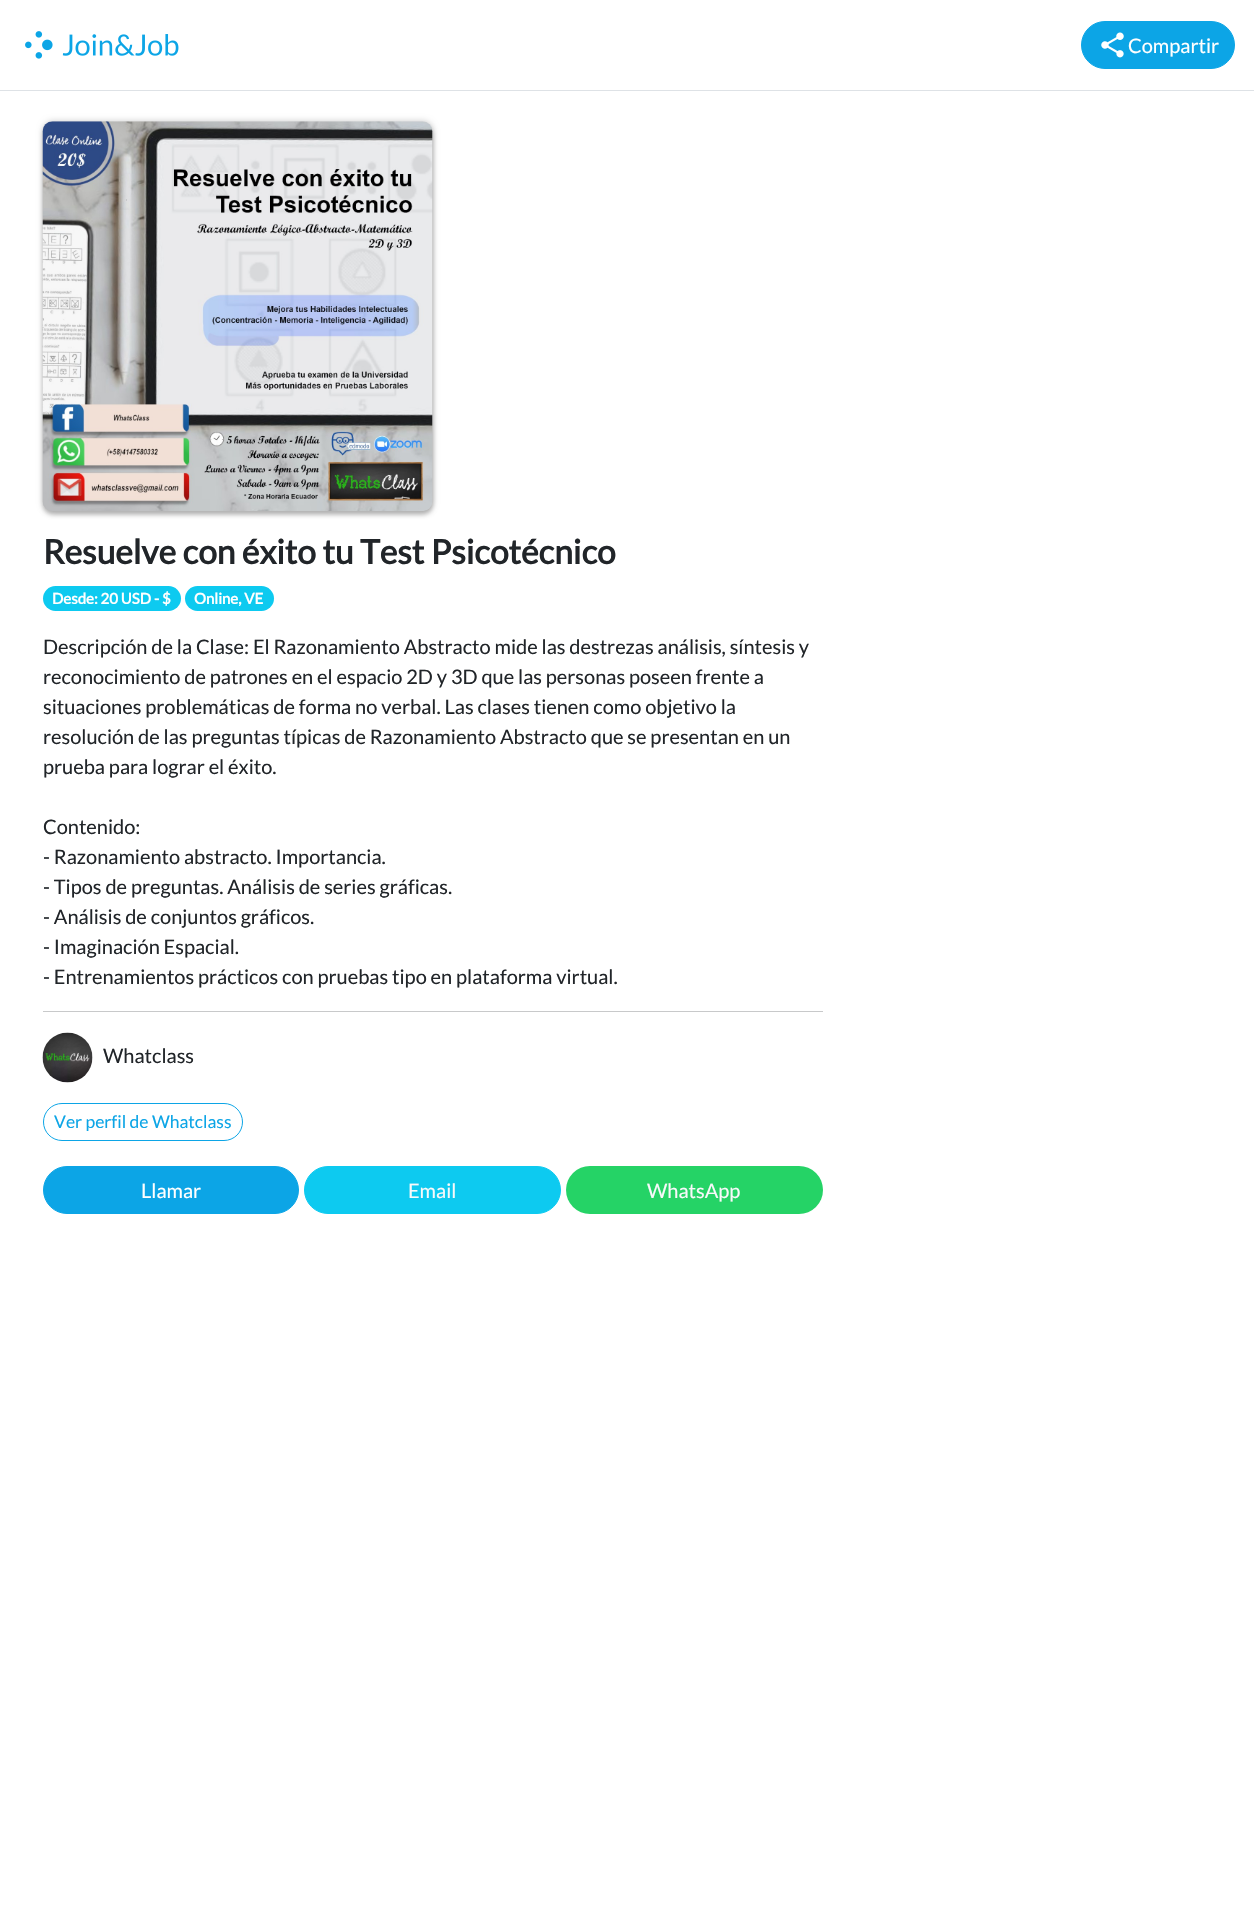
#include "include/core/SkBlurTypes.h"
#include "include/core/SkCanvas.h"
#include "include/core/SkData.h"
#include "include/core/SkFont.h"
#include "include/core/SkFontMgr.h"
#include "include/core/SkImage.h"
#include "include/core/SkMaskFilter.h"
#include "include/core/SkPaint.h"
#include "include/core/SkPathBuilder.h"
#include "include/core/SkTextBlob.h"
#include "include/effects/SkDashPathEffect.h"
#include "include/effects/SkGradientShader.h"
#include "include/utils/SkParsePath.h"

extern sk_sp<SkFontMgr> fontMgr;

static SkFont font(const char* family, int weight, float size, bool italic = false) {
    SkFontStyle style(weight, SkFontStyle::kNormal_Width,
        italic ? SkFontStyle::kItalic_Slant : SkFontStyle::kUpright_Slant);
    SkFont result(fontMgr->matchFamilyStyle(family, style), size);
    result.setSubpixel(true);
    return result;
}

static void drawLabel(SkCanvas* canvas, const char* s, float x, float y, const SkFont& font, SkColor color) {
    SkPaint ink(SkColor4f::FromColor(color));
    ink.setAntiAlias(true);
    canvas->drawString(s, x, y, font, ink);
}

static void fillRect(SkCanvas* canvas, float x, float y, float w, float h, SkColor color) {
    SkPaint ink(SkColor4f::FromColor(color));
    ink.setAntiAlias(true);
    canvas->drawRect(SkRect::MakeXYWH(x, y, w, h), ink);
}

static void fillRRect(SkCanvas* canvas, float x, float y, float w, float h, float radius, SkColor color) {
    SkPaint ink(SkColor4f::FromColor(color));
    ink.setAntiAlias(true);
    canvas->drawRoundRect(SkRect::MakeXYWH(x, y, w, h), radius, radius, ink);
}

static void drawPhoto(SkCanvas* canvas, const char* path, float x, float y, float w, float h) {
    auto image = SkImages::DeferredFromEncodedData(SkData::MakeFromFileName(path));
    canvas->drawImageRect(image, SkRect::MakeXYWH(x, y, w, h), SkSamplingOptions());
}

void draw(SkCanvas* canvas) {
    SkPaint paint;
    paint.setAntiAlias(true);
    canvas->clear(0xFFFFFFFF);
    fillRect(canvas, 0, 90, 1254, 1, 0xFFDEE2E6);
    drawPhoto(canvas, "assets/img1.png", 25, 31, 154, 28);
    paint.setColor(0xFF0CA5E6);
    canvas->drawRoundRect(SkRect::MakeXYWH(1081.5f, 21.5f, 153, 47), 23.5f, 23.5f, paint);
    paint.setStroke(true);
    paint.setStrokeWidth(1);
    canvas->drawRoundRect(SkRect::MakeXYWH(1081.5f, 21.5f, 153, 47), 23.5f, 23.5f, paint);
    drawPhoto(canvas, "assets/img2.png", 1101, 32, 23, 26);
    SkFont font1 = font("Lato", 400, 20);
    drawLabel(canvas, "Compartir", 1128, 53, font1, 0xFFFFFFFF);
    paint.setStroke(false);
    paint.setColor(0x30000000);
    paint.setMaskFilter(SkMaskFilter::MakeBlur(kNormal_SkBlurStyle, 3));
    canvas->drawRoundRect(SkRect::MakeXYWH(43, 121, 390, 390), 10, 10, paint);
    paint.setMaskFilter(nullptr);
    paint.setColor(0x3B000000);
    paint.setMaskFilter(SkMaskFilter::MakeBlur(kNormal_SkBlurStyle, 2));
    canvas->drawRoundRect(SkRect::MakeXYWH(43, 125, 390, 390), 10, 10, paint);
    paint.setMaskFilter(nullptr);
    drawPhoto(canvas, "assets/img3.png", 42, 121, 391, 390);
    SkFont font2 = font("Lato", 700, 33.5f);
    drawLabel(canvas, "Resuelve con éxito tu Test Psicotécnico", 43, 564, font2, 0xFF212529);
    fillRRect(canvas, 43, 586, 138, 25, 12.5f, 0xFF0DCAF0);
    SkFont font3 = font("Lato", 700, 15);
    drawLabel(canvas, "Desde: 20 USD - $", 52, 604, font3, 0xFFFFFFFF);
    fillRRect(canvas, 185, 586, 89, 25, 12.5f, 0xFF0DCAF0);
    drawLabel(canvas, "Online, VE", 194, 604, font3, 0xFFFFFFFF);
    drawLabel(canvas, "Descripción de la Clase: El Razonamiento Abstracto mide las destrezas análisis, síntesis y", 43, 654, font1, 0xFF212529);
    drawLabel(canvas, "reconocimiento de patrones en el espacio 2D y 3D que las personas poseen frente a", 43, 684, font1, 0xFF212529);
    drawLabel(canvas, "situaciones problemáticas de forma no verbal. Las clases tienen como objetivo la", 43, 714, font1, 0xFF212529);
    drawLabel(canvas, "resolución de las preguntas típicas de Razonamiento Abstracto que se presentan en un", 43, 744, font1, 0xFF212529);
    drawLabel(canvas, "prueba para lograr el éxito.", 43, 774, font1, 0xFF212529);
    drawLabel(canvas, "Contenido:", 43, 834, font1, 0xFF212529);
    drawLabel(canvas, "- Razonamiento abstracto. Importancia.", 43, 864, font1, 0xFF212529);
    drawLabel(canvas, "- Tipos de preguntas. Análisis de series gráficas.", 43, 894, font1, 0xFF212529);
    drawLabel(canvas, "- Análisis de conjuntos gráficos.", 43, 924, font1, 0xFF212529);
    drawLabel(canvas, "- Imaginación Espacial.", 43, 954, font1, 0xFF212529);
    drawLabel(canvas, "- Entrenamientos prácticos con pruebas tipo en plataforma virtual.", 43, 984, font1, 0xFF212529);
    fillRect(canvas, 43, 1011, 780, 1, 0xFFC8C9CA);
    drawPhoto(canvas, "assets/img4.png", 42, 1032, 51, 51);
    drawLabel(canvas, "Whatclass", 103, 1063, font1, 0xFF212529);
    paint.setStroke(true);
    paint.setColor(0xFF0CA5E6);
    canvas->drawRoundRect(SkRect::MakeXYWH(43.5f, 1103.5f, 199, 37), 18.5f, 18.5f, paint);
    SkFont font4 = font("Lato", 400, 17.5f);
    drawLabel(canvas, "Ver perfil de Whatclass", 54, 1128, font4, 0xFF0CA5E6);
    paint.setStroke(false);
    canvas->drawRoundRect(SkRect::MakeXYWH(43.5f, 1166.5f, 255, 47), 23.5f, 23.5f, paint);
    paint.setStroke(true);
    canvas->drawRoundRect(SkRect::MakeXYWH(43.5f, 1166.5f, 255, 47), 23.5f, 23.5f, paint);
    drawLabel(canvas, "Llamar", 141, 1198, font1, 0xFFFFFFFF);
    paint.setStroke(false);
    paint.setColor(0xFF0DCAF0);
    canvas->drawRoundRect(SkRect::MakeXYWH(304.5f, 1166.5f, 256, 47), 23.5f, 23.5f, paint);
    paint.setStroke(true);
    canvas->drawRoundRect(SkRect::MakeXYWH(304.5f, 1166.5f, 256, 47), 23.5f, 23.5f, paint);
    drawLabel(canvas, "Email", 408, 1198, font1, 0xFFF8F9FA);
    fillRRect(canvas, 566, 1166, 257, 48, 24, 0xFF25D366);
    drawLabel(canvas, "WhatsApp", 647, 1198, font1, 0xFFF8F9FA);
}
